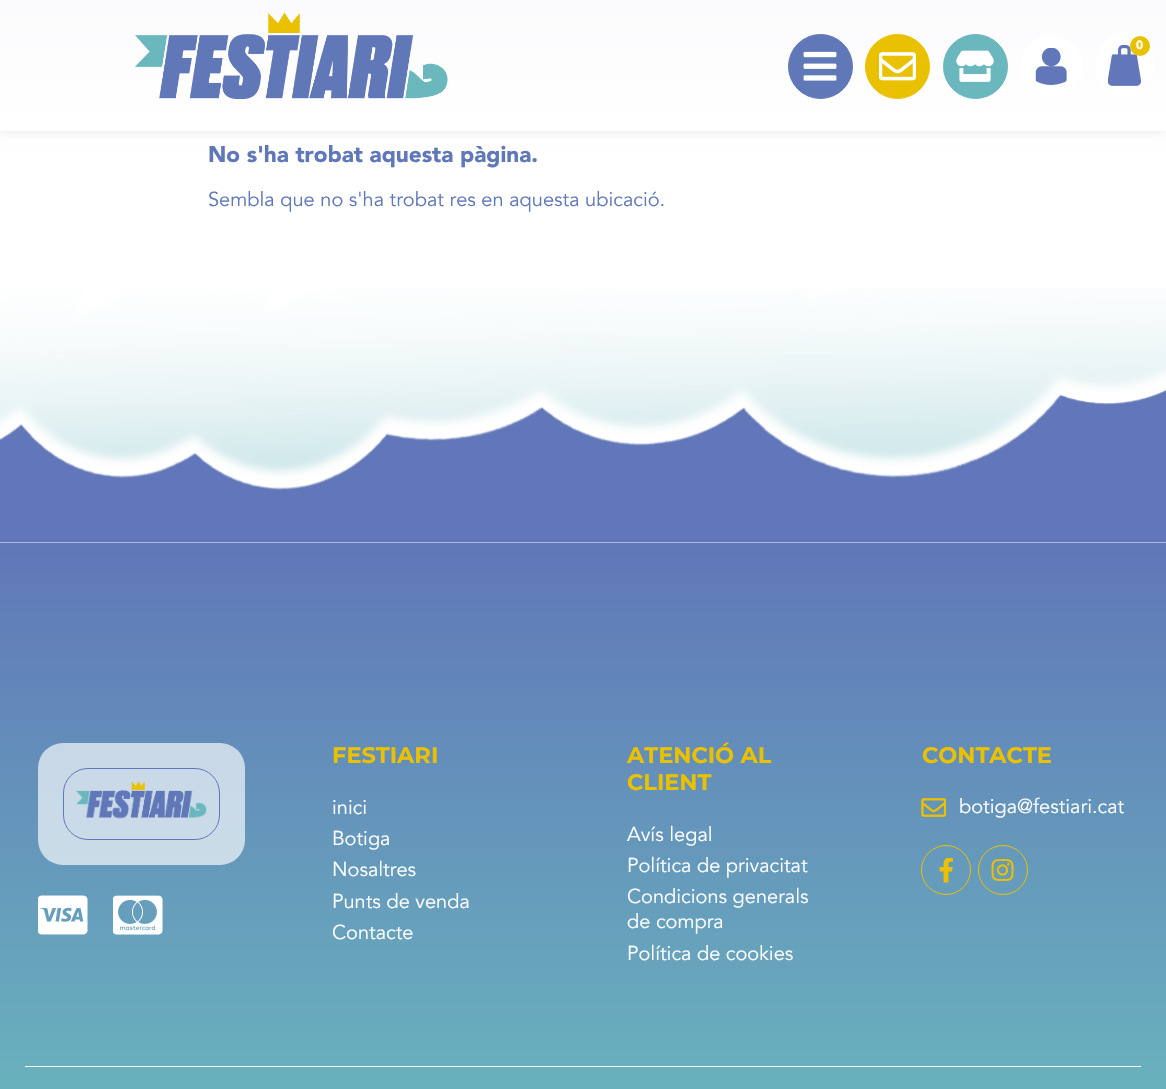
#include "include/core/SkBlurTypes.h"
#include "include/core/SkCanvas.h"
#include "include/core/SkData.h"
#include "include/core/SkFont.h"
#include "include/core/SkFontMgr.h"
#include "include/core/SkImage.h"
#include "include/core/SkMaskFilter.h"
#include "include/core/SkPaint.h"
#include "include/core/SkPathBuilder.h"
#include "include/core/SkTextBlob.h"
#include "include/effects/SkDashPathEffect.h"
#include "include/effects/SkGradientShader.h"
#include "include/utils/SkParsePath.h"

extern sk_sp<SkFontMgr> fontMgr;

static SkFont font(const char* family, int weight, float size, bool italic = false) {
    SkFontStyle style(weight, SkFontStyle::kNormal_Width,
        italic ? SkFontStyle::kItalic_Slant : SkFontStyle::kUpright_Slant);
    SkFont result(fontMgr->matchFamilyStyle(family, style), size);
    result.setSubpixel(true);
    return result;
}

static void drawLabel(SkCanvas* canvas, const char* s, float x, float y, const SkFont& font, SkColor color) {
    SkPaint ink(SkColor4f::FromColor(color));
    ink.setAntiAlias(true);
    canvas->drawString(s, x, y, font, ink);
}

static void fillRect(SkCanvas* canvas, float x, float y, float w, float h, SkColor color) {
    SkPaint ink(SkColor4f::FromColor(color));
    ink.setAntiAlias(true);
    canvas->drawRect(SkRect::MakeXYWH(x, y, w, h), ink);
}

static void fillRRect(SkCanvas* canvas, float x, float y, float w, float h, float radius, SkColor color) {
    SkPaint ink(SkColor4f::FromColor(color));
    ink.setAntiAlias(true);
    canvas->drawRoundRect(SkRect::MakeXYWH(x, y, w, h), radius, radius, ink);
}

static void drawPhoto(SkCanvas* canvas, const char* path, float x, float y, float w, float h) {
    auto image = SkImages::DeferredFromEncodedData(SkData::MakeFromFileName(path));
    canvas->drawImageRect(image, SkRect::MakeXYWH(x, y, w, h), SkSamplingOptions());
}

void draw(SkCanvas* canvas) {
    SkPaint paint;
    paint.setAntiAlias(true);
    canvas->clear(0xFFFFFFFF);
    paint.setColor(0x17000000);
    paint.setMaskFilter(SkMaskFilter::MakeBlur(kNormal_SkBlurStyle, 6));
    canvas->drawRect(SkRect::MakeXYWH(0, 0, 1166, 131), paint);
    paint.setMaskFilter(nullptr);
    {
        const SkColor colors[] = {0xFFFBFBFD, 0xFFFFFFFF};
        const float stops[] = {0, 1};
        const SkPoint ends[] = {{583, 0}, {583, 131}};
        paint.setShader(SkGradientShader::MakeLinear(ends, colors, stops, 2, SkTileMode::kClamp));
        paint.setAlpha(255);
    }
    canvas->drawRect(SkRect::MakeXYWH(0, 0, 1166, 131), paint);
    drawPhoto(canvas, "assets/img1.png", 135, 12, 313, 88);
    paint.setShader(nullptr);
    paint.setColor(0xFF6077B8);
    canvas->drawCircle(820.5f, 66.5f, 32, paint);
    paint.setStroke(true);
    paint.setStrokeWidth(1);
    canvas->drawCircle(820.5f, 66.5f, 32, paint);
    drawPhoto(canvas, "assets/img2.png", 803, 51, 34, 30);
    paint.setStroke(false);
    paint.setColor(0xFFEAC100);
    canvas->drawCircle(897.5f, 66.5f, 32, paint);
    paint.setStroke(true);
    canvas->drawCircle(897.5f, 66.5f, 32, paint);
    drawPhoto(canvas, "assets/img3.png", 879, 52, 37, 29);
    paint.setStroke(false);
    paint.setColor(0xFF6AB7BE);
    canvas->drawCircle(975.5f, 66.5f, 32, paint);
    paint.setStroke(true);
    canvas->drawCircle(975.5f, 66.5f, 32, paint);
    drawPhoto(canvas, "assets/img4.png", 956, 50, 38, 32);
    paint.setStroke(false);
    paint.setColor(0xFFFFFFFF);
    canvas->drawCircle(1051.5f, 66.5f, 31.5f, paint);
    drawPhoto(canvas, "assets/img5.png", 1035, 48, 32, 37);
    canvas->drawOval(SkRect::MakeXYWH(1095, 32.5f, 59, 66), paint);
    drawPhoto(canvas, "assets/img6.png", 1108, 45, 33, 41);
    paint.setColor(0xFFEAC100);
    canvas->drawCircle(1140, 46, 10, paint);
    SkFont font1 = font("Avenir", 900, 12);
    drawLabel(canvas, "0", 1136, 49, font1, 0xFFFFFFFF);
    SkFont font2 = font("Avenir", 900, 22.5f);
    drawLabel(canvas, "No s'ha trobat aquesta pàgina.", 208, 162, font2, 0xFF6077B8);
    SkFont font3 = font("Avenir", 400, 20);
    drawLabel(canvas, "Sembla que no s'ha trobat res en aquesta ubicació.", 208, 206, font3, 0xFF6077B8);
    drawPhoto(canvas, "assets/img7.png", 0, 288, 1166, 255);
    {
        const SkColor colors[] = {0xFF6077B8, 0xFF6AB7BE};
        const float stops[] = {0, 1};
        const SkPoint ends[] = {{583, 542}, {583, 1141}};
        paint.setShader(SkGradientShader::MakeLinear(ends, colors, stops, 2, SkTileMode::kClamp));
        paint.setAlpha(255);
    }
    canvas->drawRect(SkRect::MakeXYWH(0, 543, 1166, 546), paint);
    fillRRect(canvas, 38, 743, 207, 122, 25, 0xA6FFFFFF);
    paint.setStroke(true);
    paint.setShader(nullptr);
    paint.setColor(0xFF6077B8);
    canvas->drawRoundRect(SkRect::MakeXYWH(63.5f, 768.5f, 156, 71), 24.5f, 24.5f, paint);
    drawPhoto(canvas, "assets/img8.png", 76, 781, 131, 38);
    drawPhoto(canvas, "assets/img9.png", 38, 895, 50, 40);
    drawPhoto(canvas, "assets/img10.png", 113, 895, 50, 40);
    SkFont font4 = font("Montserrat", 700, 22.5f);
    drawLabel(canvas, "FESTIARI", 332, 763, font4, 0xFFEAC100);
    drawLabel(canvas, "inici", 332, 814, font3, 0xFFFFFFFF);
    drawLabel(canvas, "Botiga", 332, 845, font3, 0xFFFFFFFF);
    drawLabel(canvas, "Nosaltres", 332, 876, font3, 0xFFFFFFFF);
    drawLabel(canvas, "Punts de venda", 332, 908, font3, 0xFFFFFFFF);
    drawLabel(canvas, "Contacte", 332, 939, font3, 0xFFFFFFFF);
    drawLabel(canvas, "ATENCIÓ AL", 627, 763, font4, 0xFFEAC100);
    drawLabel(canvas, "CLIENT", 627, 790, font4, 0xFFEAC100);
    drawLabel(canvas, "Avís legal", 627, 841, font3, 0xFFFFFFFF);
    drawLabel(canvas, "Política de privacitat", 627, 872, font3, 0xFFFFFFFF);
    drawLabel(canvas, "Condicions generals", 627, 903, font3, 0xFFFFFFFF);
    drawLabel(canvas, "de compra", 627, 928, font3, 0xFFFFFFFF);
    drawLabel(canvas, "Política de cookies", 627, 960, font3, 0xFFFFFFFF);
    drawLabel(canvas, "CONTACTE", 922, 763, font4, 0xFFEAC100);
    drawPhoto(canvas, "assets/img11.png", 921, 798, 25, 19);
    drawLabel(canvas, "botiga@festiari.cat", 959, 813, font3, 0xFFFFFFFF);
    paint.setColor(0xFFEAC100);
    canvas->drawCircle(946, 870, 24.5f, paint);
    drawPhoto(canvas, "assets/img12.png", 939, 858, 14, 25);
    canvas->drawCircle(1003, 870, 24.5f, paint);
    drawPhoto(canvas, "assets/img13.png", 991, 859, 23, 22);
    fillRect(canvas, 25, 1066, 1116, 1, 0xFFFFFFFF);
}
